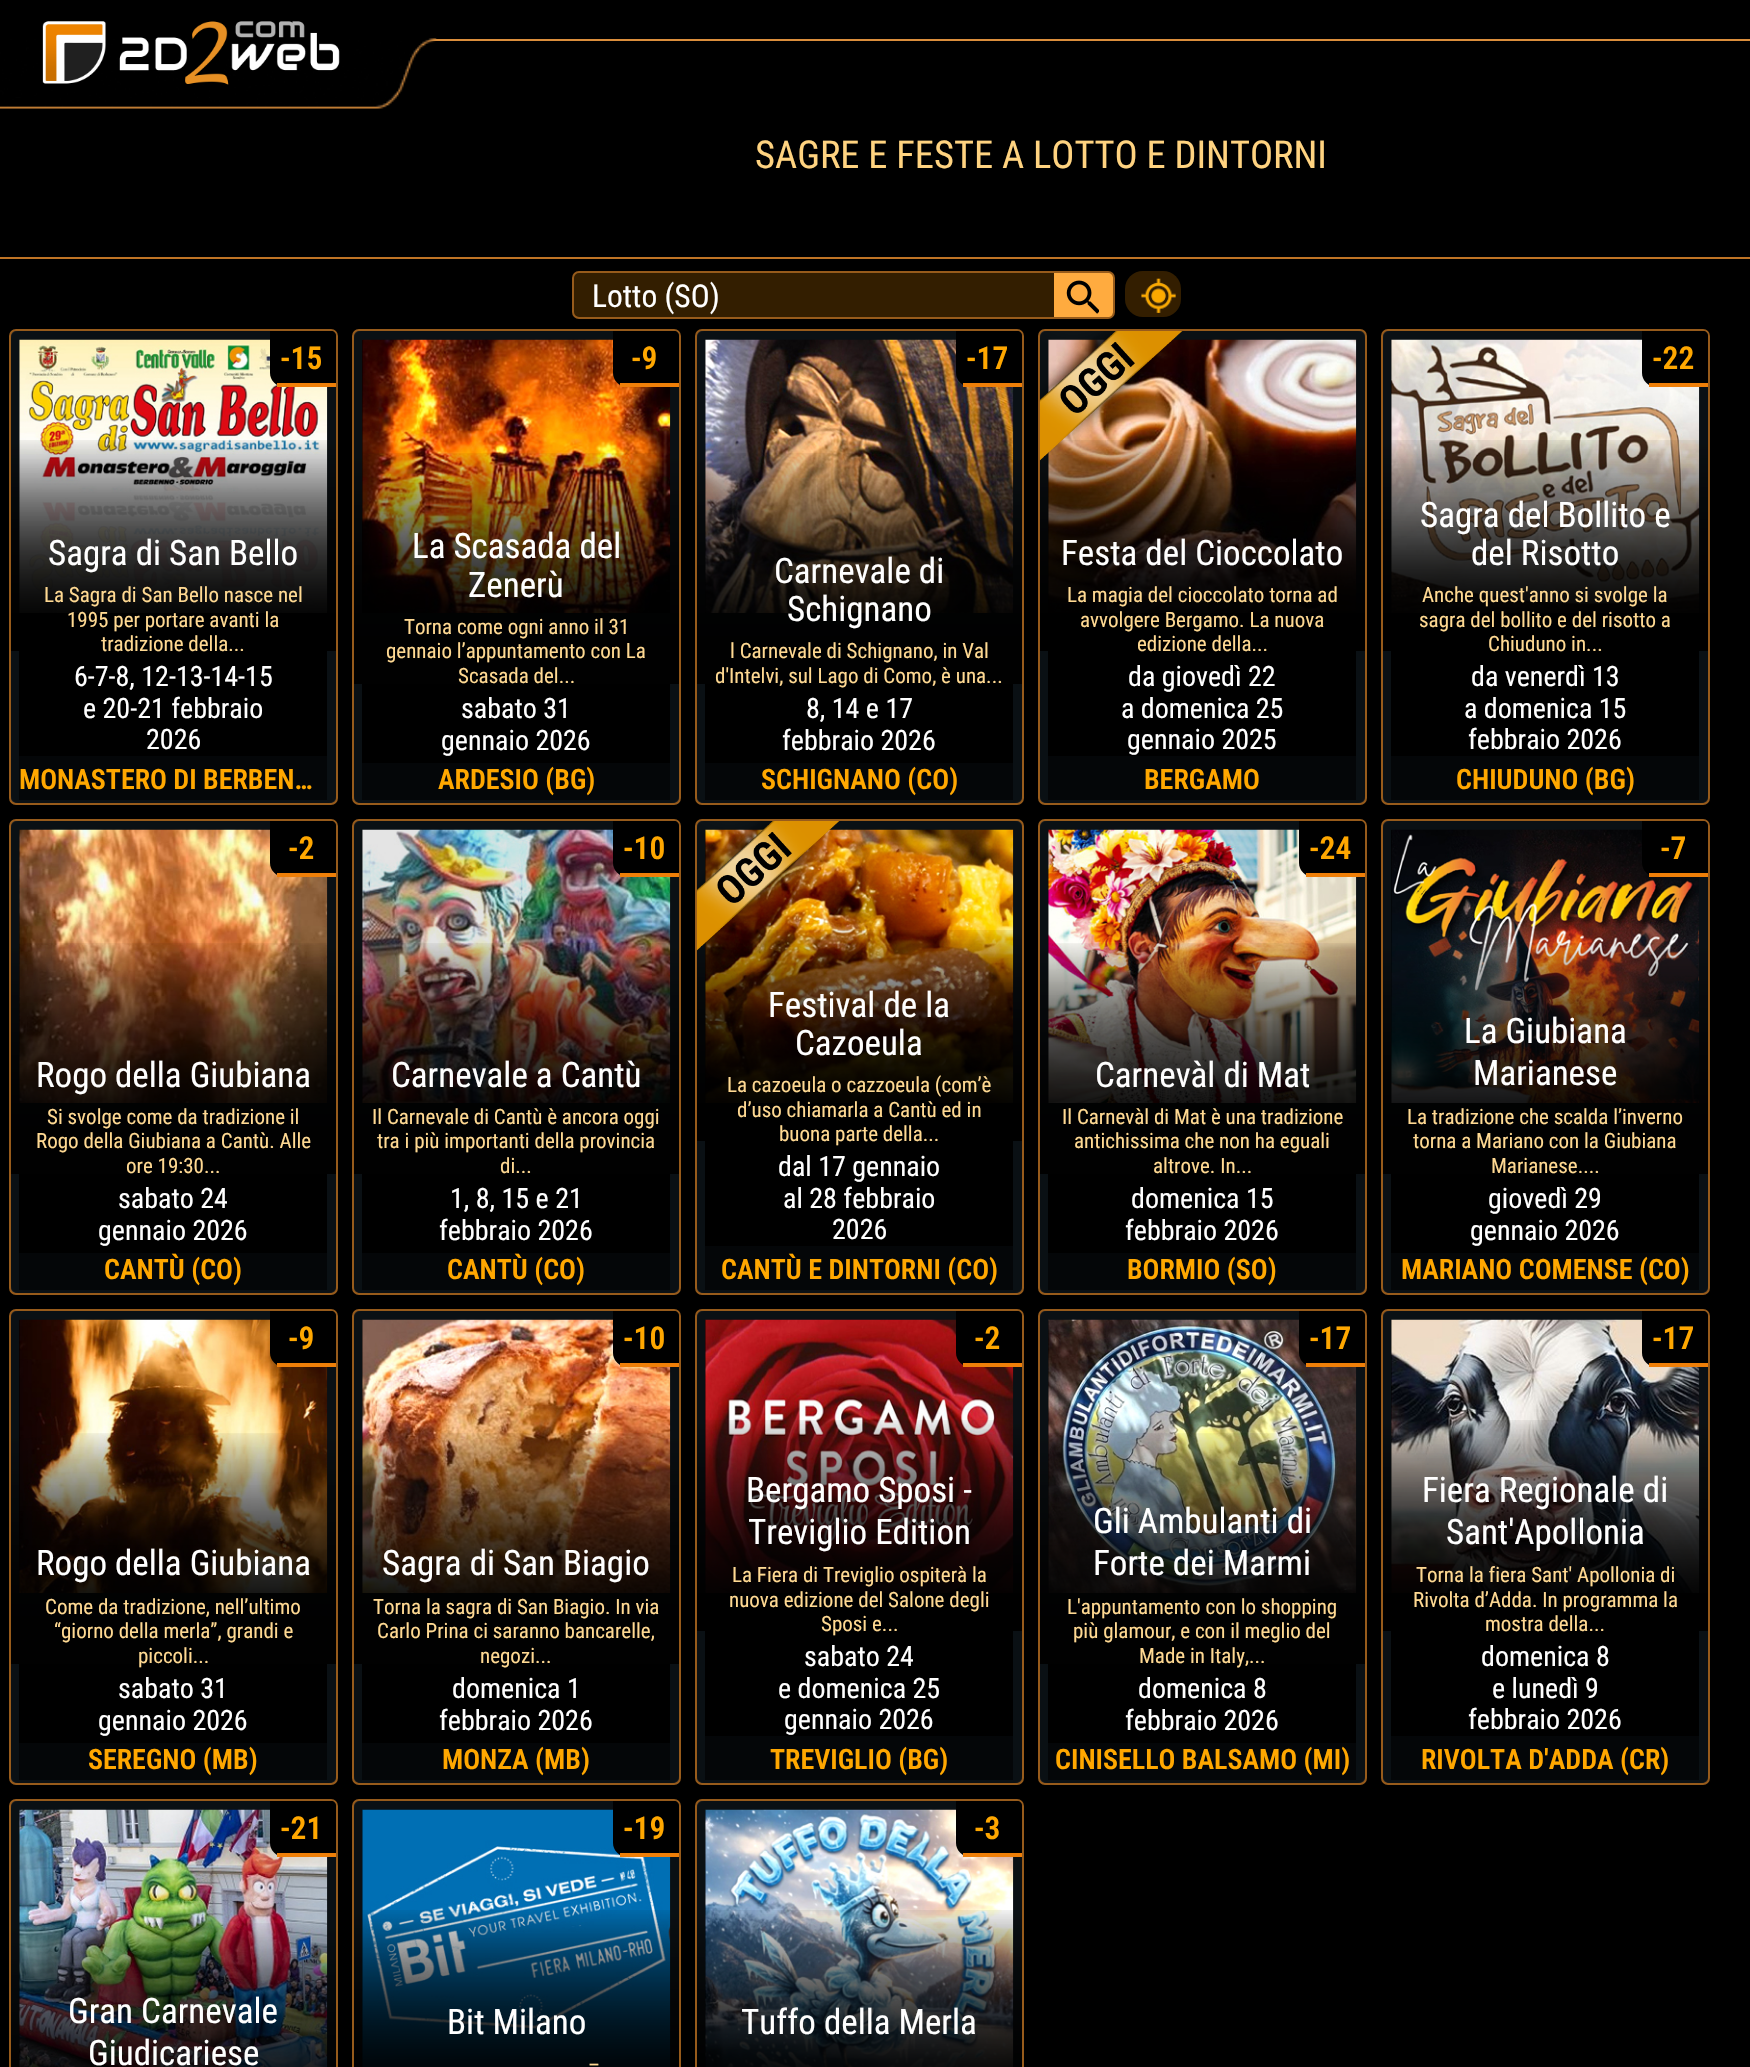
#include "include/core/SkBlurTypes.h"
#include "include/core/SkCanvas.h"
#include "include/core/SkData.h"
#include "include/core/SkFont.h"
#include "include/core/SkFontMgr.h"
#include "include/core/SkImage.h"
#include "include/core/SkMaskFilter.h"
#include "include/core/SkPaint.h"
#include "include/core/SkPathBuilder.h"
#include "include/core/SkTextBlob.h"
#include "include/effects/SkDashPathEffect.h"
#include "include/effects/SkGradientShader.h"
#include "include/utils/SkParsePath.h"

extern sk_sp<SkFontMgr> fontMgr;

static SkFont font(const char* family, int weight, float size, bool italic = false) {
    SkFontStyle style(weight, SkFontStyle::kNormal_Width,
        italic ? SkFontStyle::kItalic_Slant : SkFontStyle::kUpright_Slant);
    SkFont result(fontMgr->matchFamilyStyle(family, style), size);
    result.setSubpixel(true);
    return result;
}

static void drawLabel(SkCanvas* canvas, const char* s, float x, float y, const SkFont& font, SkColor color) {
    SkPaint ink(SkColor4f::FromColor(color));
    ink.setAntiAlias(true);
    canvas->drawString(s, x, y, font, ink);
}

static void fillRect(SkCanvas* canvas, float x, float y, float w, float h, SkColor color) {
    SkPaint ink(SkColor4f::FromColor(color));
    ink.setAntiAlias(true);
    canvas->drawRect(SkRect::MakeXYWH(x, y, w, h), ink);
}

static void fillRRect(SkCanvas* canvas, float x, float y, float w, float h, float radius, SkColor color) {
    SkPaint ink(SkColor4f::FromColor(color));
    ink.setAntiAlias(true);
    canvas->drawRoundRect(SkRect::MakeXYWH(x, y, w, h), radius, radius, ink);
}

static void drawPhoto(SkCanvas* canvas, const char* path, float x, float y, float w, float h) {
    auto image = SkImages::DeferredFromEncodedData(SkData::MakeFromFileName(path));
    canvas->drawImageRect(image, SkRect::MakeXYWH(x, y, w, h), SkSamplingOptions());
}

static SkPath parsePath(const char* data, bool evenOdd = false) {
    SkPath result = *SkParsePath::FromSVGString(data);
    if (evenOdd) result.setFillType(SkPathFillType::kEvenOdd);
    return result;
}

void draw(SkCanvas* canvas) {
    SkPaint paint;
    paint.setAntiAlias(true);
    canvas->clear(0xFF000000);
    fillRect(canvas, 428, 39, 1322, 2, 0xFFDB8E3C);
    drawPhoto(canvas, "assets/img2.png", 0, 38, 437, 71);
    drawPhoto(canvas, "assets/img1.png", 42, 21, 298, 64);
    SkFont font1 = font("Roboto Condensed", 400, 38.5f);
    drawLabel(canvas, "SAGRE E FESTE A LOTTO E DINTORNI", 755, 168, font1, 0xFFFFD380);
    fillRect(canvas, 0, 257, 1750, 2, 0xFFBF7425);
    paint.setColor(0xFF331E00);
    canvas->drawRoundRect(SkRect::MakeXYWH(573, 272, 541, 46), 6, 6, paint);
    paint.setStroke(true);
    paint.setStrokeWidth(2);
    paint.setColor(0xFF975B1B);
    canvas->drawRoundRect(SkRect::MakeXYWH(573, 272, 541, 46), 6, 6, paint);
    SkFont font2 = font("Roboto Condensed", 400, 31.5f);
    drawLabel(canvas, "Lotto (SO)", 592, 307, font2, 0xFFFFFFFF);
    paint.setStroke(false);
    paint.setColor(0xFFFFAB3F);
    canvas->drawPath(parsePath("M1054 273H1108C1111 273 1113 275 1113 278V312C1113 315 1111 317 1108 317H1054Z"), paint);
    drawPhoto(canvas, "assets/img3.png", 1066, 280, 33, 34);
    fillRRect(canvas, 1125, 271, 56, 46, 18, 0xFF331E00);
    drawPhoto(canvas, "assets/img4.png", 1141, 278, 35, 35);
    paint.setColor(0xFF202020);
    canvas->drawRoundRect(SkRect::MakeXYWH(10, 330, 327, 474), 6, 6, paint);
    paint.setStroke(true);
    paint.setColor(0xFF975B1B);
    canvas->drawRoundRect(SkRect::MakeXYWH(10, 330, 327, 474), 6, 6, paint);
    fillRRect(canvas, 11, 331, 325, 472, 7, 0xFF0A1014);
    fillRect(canvas, 19, 340, 1, 273, 0xFF000000);
    drawPhoto(canvas, "assets/img5.png", 19, 339, 309, 274);
    paint.setStroke(false);
    paint.setColor(0xFF000000);
    canvas->drawPath(parsePath("M270 331H331C334 331 336 333 336 336V387H284C276.5 387 270 380.5 270 373Z"), paint);
    fillRect(canvas, 277, 383, 59, 4, 0xFFEF7F08);
    SkFont font3 = font("Roboto Condensed", 600, 31.5f);
    drawLabel(canvas, "-15", 280, 369, font3, 0xFFFFA700);
    fillRect(canvas, 19, 651, 308, 105, 0xFF000000);
    SkFont font4 = font("Roboto Condensed", 400, 28);
    drawLabel(canvas, "6-7-8, 12-13-14-15", 74, 686, font4, 0xFFFFFFFF);
    drawLabel(canvas, "e 20-21 febbraio", 83, 718, font4, 0xFFFFFFFF);
    drawLabel(canvas, "2026", 146, 749, font4, 0xFFFFFFFF);
    fillRect(canvas, 19, 756, 308, 44, 0xFF040608);
    SkFont font5 = font("Roboto Condensed", 600, 28);
    drawLabel(canvas, "MONASTERO DI BERBEN…", 19, 789, font5, 0xFFFFA700);
    {
        const SkColor colors[] = {0x00000000, 0xFF000000};
        const float stops[] = {0.33f, 1};
        const SkPoint ends[] = {{173, 331}, {173, 646}};
        paint.setShader(SkGradientShader::MakeLinear(ends, colors, stops, 2, SkTileMode::kClamp));
        paint.setAlpha(255);
    }
    canvas->drawRect(SkRect::MakeXYWH(11, 440, 325, 173), paint);
    canvas->drawRect(SkRect::MakeXYWH(11, 440, 325, 173), paint);
    SkFont font6 = font("Roboto Condensed", 400, 35);
    drawLabel(canvas, "Sagra di San Bello", 48, 565, font6, 0xFFFFFFFF);
    SkFont font7 = font("Roboto Condensed", 400, 21);
    drawLabel(canvas, "La Sagra di San Bello nasce nel", 44, 602, font7, 0xFFFFD992);
    fillRect(canvas, 11, 613, 325, 38, 0xFF000000);
    drawLabel(canvas, "1995 per portare avanti la", 67, 627, font7, 0xFFFFD992);
    drawLabel(canvas, "tradizione della...", 101, 651, font7, 0xFFFFD992);
    paint.setShader(nullptr);
    paint.setColor(0xFF202020);
    canvas->drawRoundRect(SkRect::MakeXYWH(353, 330, 327, 474), 6, 6, paint);
    paint.setStroke(true);
    paint.setColor(0xFF975B1B);
    canvas->drawRoundRect(SkRect::MakeXYWH(353, 330, 327, 474), 6, 6, paint);
    fillRRect(canvas, 354, 331, 325, 472, 7, 0xFF0A1014);
    fillRect(canvas, 362, 340, 1, 273, 0xFF000000);
    drawPhoto(canvas, "assets/img6.png", 362, 339, 309, 274);
    paint.setStroke(false);
    paint.setColor(0xFF000000);
    canvas->drawPath(parsePath("M613 331H674C677 331 679 333 679 336V387H627C619.5 387 613 380.5 613 373Z"), paint);
    fillRect(canvas, 620, 383, 59, 4, 0xFFEF7F08);
    drawLabel(canvas, "-9", 631, 369, font3, 0xFFFFA700);
    fillRect(canvas, 362, 684, 308, 79, 0xFF000000);
    drawLabel(canvas, "sabato 31", 461, 718, font4, 0xFFFFFFFF);
    drawLabel(canvas, "gennaio 2026", 441, 750, font4, 0xFFFFFFFF);
    fillRect(canvas, 362, 763, 308, 37, 0xFF040608);
    drawLabel(canvas, "ARDESIO (BG)", 438, 789, font5, 0xFFFFA700);
    {
        const SkColor colors[] = {0x00000000, 0xFF000000};
        const float stops[] = {0.33f, 1};
        const SkPoint ends[] = {{516, 331}, {516, 684}};
        paint.setShader(SkGradientShader::MakeLinear(ends, colors, stops, 2, SkTileMode::kClamp));
        paint.setAlpha(255);
    }
    canvas->drawRect(SkRect::MakeXYWH(354, 453, 325, 230), paint);
    canvas->drawRect(SkRect::MakeXYWH(354, 453, 325, 231), paint);
    drawLabel(canvas, "La Scasada del", 412, 558, font6, 0xFFFFFFFF);
    drawLabel(canvas, "Zenerù", 468, 597, font6, 0xFFFFFFFF);
    drawLabel(canvas, "Torna come ogni anno il 31", 404, 634, font7, 0xFFFFD992);
    drawLabel(canvas, "gennaio l’appuntamento con La", 386, 658, font7, 0xFFFFD992);
    drawLabel(canvas, "Scasada del...", 458, 683, font7, 0xFFFFD992);
    paint.setShader(nullptr);
    paint.setColor(0xFF202020);
    canvas->drawRoundRect(SkRect::MakeXYWH(696, 330, 327, 474), 6, 6, paint);
    paint.setStroke(true);
    paint.setColor(0xFF975B1B);
    canvas->drawRoundRect(SkRect::MakeXYWH(696, 330, 327, 474), 6, 6, paint);
    fillRRect(canvas, 697, 331, 325, 472, 7, 0xFF0A1014);
    fillRect(canvas, 705, 340, 1, 273, 0xFF000000);
    drawPhoto(canvas, "assets/img7.png", 705, 339, 309, 274);
    paint.setStroke(false);
    paint.setColor(0xFF000000);
    canvas->drawPath(parsePath("M956 331H1017C1020 331 1022 333 1022 336V387H970C962.5 387 956 380.5 956 373Z"), paint);
    fillRect(canvas, 963, 383, 59, 4, 0xFFEF7F08);
    drawLabel(canvas, "-17", 966, 369, font3, 0xFFFFA700);
    fillRect(canvas, 705, 684, 308, 79, 0xFF000000);
    drawLabel(canvas, "8, 14 e 17", 806, 718, font4, 0xFFFFFFFF);
    drawLabel(canvas, "febbraio 2026", 782, 750, font4, 0xFFFFFFFF);
    fillRect(canvas, 705, 763, 308, 37, 0xFF040608);
    drawLabel(canvas, "SCHIGNANO (CO)", 761, 789, font5, 0xFFFFA700);
    {
        const SkColor colors[] = {0x00000000, 0xFF000000};
        const float stops[] = {0.33f, 1};
        const SkPoint ends[] = {{859, 331}, {859, 684}};
        paint.setShader(SkGradientShader::MakeLinear(ends, colors, stops, 2, SkTileMode::kClamp));
        paint.setAlpha(255);
    }
    canvas->drawRect(SkRect::MakeXYWH(697, 453, 325, 230), paint);
    canvas->drawRect(SkRect::MakeXYWH(697, 453, 325, 231), paint);
    drawLabel(canvas, "Carnevale di", 774, 583, font6, 0xFFFFFFFF);
    drawLabel(canvas, "Schignano", 787, 621, font6, 0xFFFFFFFF);
    drawLabel(canvas, "l Carnevale di Schignano, in Val", 730, 658, font7, 0xFFFFD992);
    drawLabel(canvas, "d'Intelvi, sul Lago di Como, è una...", 715, 683, font7, 0xFFFFD992);
    paint.setShader(nullptr);
    paint.setColor(0xFF202020);
    canvas->drawRoundRect(SkRect::MakeXYWH(1039, 330, 327, 474), 6, 6, paint);
    paint.setStroke(true);
    paint.setColor(0xFF975B1B);
    canvas->drawRoundRect(SkRect::MakeXYWH(1039, 330, 327, 474), 6, 6, paint);
    fillRRect(canvas, 1040, 331, 325, 472, 7, 0xFF0A1014);
    fillRect(canvas, 1048, 340, 1, 273, 0xFF000000);
    drawPhoto(canvas, "assets/img9.png", 1048, 339, 309, 274);
    paint.setStroke(false);
    {
        const SkColor colors[] = {0x00000000, 0xFF000000};
        const float stops[] = {0.33f, 1};
        const SkPoint ends[] = {{1202, 331}, {1202, 646}};
        paint.setShader(SkGradientShader::MakeLinear(ends, colors, stops, 2, SkTileMode::kClamp));
        paint.setAlpha(255);
    }
    canvas->drawRect(SkRect::MakeXYWH(1040, 440, 325, 173), paint);
    canvas->drawRect(SkRect::MakeXYWH(1040, 440, 325, 173), paint);
    drawPhoto(canvas, "assets/img8.png", 1039, 331, 144, 130);
    drawLabel(canvas, "Festa del Cioccolato", 1061, 565, font6, 0xFFFFFFFF);
    drawLabel(canvas, "La magia del cioccolato torna ad", 1067, 602, font7, 0xFFFFD992);
    fillRect(canvas, 1040, 613, 325, 38, 0xFF000000);
    drawLabel(canvas, "avvolgere Bergamo. La nuova", 1080, 627, font7, 0xFFFFD992);
    fillRect(canvas, 1048, 651, 308, 105, 0xFF000000);
    drawLabel(canvas, "edizione della...", 1137, 651, font7, 0xFFFFD992);
    drawLabel(canvas, "da giovedì 22", 1128, 686, font4, 0xFFFFFFFF);
    drawLabel(canvas, "a domenica 25", 1121, 718, font4, 0xFFFFFFFF);
    drawLabel(canvas, "gennaio 2025", 1127, 749, font4, 0xFFFFFFFF);
    fillRect(canvas, 1048, 756, 308, 44, 0xFF040608);
    drawLabel(canvas, "BERGAMO", 1144, 789, font5, 0xFFFFA700);
    paint.setShader(nullptr);
    paint.setColor(0xFF202020);
    canvas->drawRoundRect(SkRect::MakeXYWH(1382, 330, 327, 474), 6, 6, paint);
    paint.setStroke(true);
    paint.setColor(0xFF975B1B);
    canvas->drawRoundRect(SkRect::MakeXYWH(1382, 330, 327, 474), 6, 6, paint);
    fillRRect(canvas, 1383, 331, 325, 472, 7, 0xFF0A1014);
    fillRect(canvas, 1391, 340, 1, 273, 0xFF000000);
    drawPhoto(canvas, "assets/img10.png", 1391, 339, 309, 274);
    paint.setStroke(false);
    paint.setColor(0xFF000000);
    canvas->drawPath(parsePath("M1642 331H1703C1706 331 1708 333 1708 336V387H1656C1648.5 387 1642 380.5 1642 373Z"), paint);
    fillRect(canvas, 1649, 383, 59, 4, 0xFFEF7F08);
    drawLabel(canvas, "-22", 1652, 369, font3, 0xFFFFA700);
    fillRect(canvas, 1391, 651, 308, 105, 0xFF000000);
    drawLabel(canvas, "da venerdì 13", 1471, 686, font4, 0xFFFFFFFF);
    drawLabel(canvas, "a domenica 15", 1464, 718, font4, 0xFFFFFFFF);
    drawLabel(canvas, "febbraio 2026", 1468, 749, font4, 0xFFFFFFFF);
    fillRect(canvas, 1391, 756, 308, 44, 0xFF040608);
    drawLabel(canvas, "CHIUDUNO (BG)", 1456, 789, font5, 0xFFFFA700);
    {
        const SkColor colors[] = {0x00000000, 0xFF000000};
        const float stops[] = {0.33f, 1};
        const SkPoint ends[] = {{1545, 331}, {1545, 646}};
        paint.setShader(SkGradientShader::MakeLinear(ends, colors, stops, 2, SkTileMode::kClamp));
        paint.setAlpha(255);
    }
    canvas->drawRect(SkRect::MakeXYWH(1383, 440, 325, 173), paint);
    canvas->drawRect(SkRect::MakeXYWH(1383, 440, 325, 173), paint);
    drawLabel(canvas, "Sagra del Bollito e", 1420, 527, font6, 0xFFFFFFFF);
    drawLabel(canvas, "del Risotto", 1471, 565, font6, 0xFFFFFFFF);
    drawLabel(canvas, "Anche quest'anno si svolge la", 1422, 602, font7, 0xFFFFD992);
    fillRect(canvas, 1383, 613, 325, 38, 0xFF000000);
    drawLabel(canvas, "sagra del bollito e del risotto a", 1419, 627, font7, 0xFFFFD992);
    drawLabel(canvas, "Chiuduno in...", 1488, 651, font7, 0xFFFFD992);
    paint.setShader(nullptr);
    paint.setColor(0xFF202020);
    canvas->drawRoundRect(SkRect::MakeXYWH(10, 820, 327, 474), 6, 6, paint);
    paint.setStroke(true);
    paint.setColor(0xFF975B1B);
    canvas->drawRoundRect(SkRect::MakeXYWH(10, 820, 327, 474), 6, 6, paint);
    fillRRect(canvas, 11, 821, 325, 472, 7, 0xFF0A1014);
    fillRect(canvas, 19, 830, 1, 273, 0xFF000000);
    drawPhoto(canvas, "assets/img11.png", 19, 829, 309, 274);
    paint.setStroke(false);
    paint.setColor(0xFF000000);
    canvas->drawPath(parsePath("M270 821H331C334 821 336 823 336 826V877H284C276.5 877 270 870.5 270 863Z"), paint);
    fillRect(canvas, 277, 873, 59, 4, 0xFFEF7F08);
    drawLabel(canvas, "-2", 288, 859, font3, 0xFFFFA700);
    fillRect(canvas, 19, 1174, 308, 79, 0xFF000000);
    drawLabel(canvas, "sabato 24", 118, 1208, font4, 0xFFFFFFFF);
    drawLabel(canvas, "gennaio 2026", 98, 1240, font4, 0xFFFFFFFF);
    fillRect(canvas, 19, 1253, 308, 37, 0xFF040608);
    drawLabel(canvas, "CANTÙ (CO)", 104, 1279, font5, 0xFFFFA700);
    {
        const SkColor colors[] = {0x00000000, 0xFF000000};
        const float stops[] = {0.33f, 1};
        const SkPoint ends[] = {{173, 821}, {173, 1174}};
        paint.setShader(SkGradientShader::MakeLinear(ends, colors, stops, 2, SkTileMode::kClamp));
        paint.setAlpha(255);
    }
    canvas->drawRect(SkRect::MakeXYWH(11, 943, 325, 230), paint);
    canvas->drawRect(SkRect::MakeXYWH(11, 943, 325, 231), paint);
    drawLabel(canvas, "Rogo della Giubiana", 36, 1087, font6, 0xFFFFFFFF);
    drawLabel(canvas, "Si svolge come da tradizione il", 47, 1124, font7, 0xFFFFD992);
    drawLabel(canvas, "Rogo della Giubiana a Cantù. Alle", 36, 1148, font7, 0xFFFFD992);
    drawLabel(canvas, "ore 19:30...", 126, 1173, font7, 0xFFFFD992);
    paint.setShader(nullptr);
    paint.setColor(0xFF202020);
    canvas->drawRoundRect(SkRect::MakeXYWH(353, 820, 327, 474), 6, 6, paint);
    paint.setStroke(true);
    paint.setColor(0xFF975B1B);
    canvas->drawRoundRect(SkRect::MakeXYWH(353, 820, 327, 474), 6, 6, paint);
    fillRRect(canvas, 354, 821, 325, 472, 7, 0xFF0A1014);
    fillRect(canvas, 362, 830, 1, 273, 0xFF000000);
    drawPhoto(canvas, "assets/img12.png", 362, 829, 309, 274);
    paint.setStroke(false);
    paint.setColor(0xFF000000);
    canvas->drawPath(parsePath("M613 821H674C677 821 679 823 679 826V877H627C619.5 877 613 870.5 613 863Z"), paint);
    fillRect(canvas, 620, 873, 59, 4, 0xFFEF7F08);
    drawLabel(canvas, "-10", 623, 859, font3, 0xFFFFA700);
    fillRect(canvas, 362, 1174, 308, 79, 0xFF000000);
    drawLabel(canvas, "1, 8, 15 e 21", 450, 1208, font4, 0xFFFFFFFF);
    drawLabel(canvas, "febbraio 2026", 439, 1240, font4, 0xFFFFFFFF);
    fillRect(canvas, 362, 1253, 308, 37, 0xFF040608);
    drawLabel(canvas, "CANTÙ (CO)", 447, 1279, font5, 0xFFFFA700);
    {
        const SkColor colors[] = {0x00000000, 0xFF000000};
        const float stops[] = {0.33f, 1};
        const SkPoint ends[] = {{516, 821}, {516, 1174}};
        paint.setShader(SkGradientShader::MakeLinear(ends, colors, stops, 2, SkTileMode::kClamp));
        paint.setAlpha(255);
    }
    canvas->drawRect(SkRect::MakeXYWH(354, 943, 325, 230), paint);
    canvas->drawRect(SkRect::MakeXYWH(354, 943, 325, 231), paint);
    drawLabel(canvas, "Carnevale a Cantù", 391, 1087, font6, 0xFFFFFFFF);
    drawLabel(canvas, "Il Carnevale di Cantù è ancora oggi", 372, 1124, font7, 0xFFFFD992);
    drawLabel(canvas, "tra i più importanti della provincia", 377, 1148, font7, 0xFFFFD992);
    drawLabel(canvas, "di...", 500, 1173, font7, 0xFFFFD992);
    paint.setShader(nullptr);
    paint.setColor(0xFF202020);
    canvas->drawRoundRect(SkRect::MakeXYWH(696, 820, 327, 474), 6, 6, paint);
    paint.setStroke(true);
    paint.setColor(0xFF975B1B);
    canvas->drawRoundRect(SkRect::MakeXYWH(696, 820, 327, 474), 6, 6, paint);
    fillRRect(canvas, 697, 821, 325, 472, 7, 0xFF0A1014);
    fillRect(canvas, 705, 830, 1, 273, 0xFF000000);
    drawPhoto(canvas, "assets/img14.png", 705, 829, 309, 274);
    paint.setStroke(false);
    {
        const SkColor colors[] = {0x00000000, 0xFF000000};
        const float stops[] = {0.33f, 1};
        const SkPoint ends[] = {{859, 821}, {859, 1136}};
        paint.setShader(SkGradientShader::MakeLinear(ends, colors, stops, 2, SkTileMode::kClamp));
        paint.setAlpha(255);
    }
    canvas->drawRect(SkRect::MakeXYWH(697, 930, 325, 173), paint);
    canvas->drawRect(SkRect::MakeXYWH(697, 930, 325, 173), paint);
    drawPhoto(canvas, "assets/img13.png", 696, 821, 144, 130);
    drawLabel(canvas, "Festival de la", 768, 1017, font6, 0xFFFFFFFF);
    drawLabel(canvas, "Cazoeula", 795, 1055, font6, 0xFFFFFFFF);
    drawLabel(canvas, "La cazoeula o cazzoeula (com’è", 727, 1092, font7, 0xFFFFD992);
    fillRect(canvas, 697, 1103, 325, 38, 0xFF000000);
    drawLabel(canvas, "d’uso chiamarla a Cantù ed in", 737, 1117, font7, 0xFFFFD992);
    fillRect(canvas, 705, 1141, 308, 105, 0xFF000000);
    drawLabel(canvas, "buona parte della...", 779, 1141, font7, 0xFFFFD992);
    drawLabel(canvas, "dal 17 gennaio", 778, 1176, font4, 0xFFFFFFFF);
    drawLabel(canvas, "al 28 febbraio", 783, 1208, font4, 0xFFFFFFFF);
    drawLabel(canvas, "2026", 832, 1239, font4, 0xFFFFFFFF);
    fillRect(canvas, 705, 1246, 308, 44, 0xFF040608);
    drawLabel(canvas, "CANTÙ E DINTORNI (CO)", 721, 1279, font5, 0xFFFFA700);
    paint.setShader(nullptr);
    paint.setColor(0xFF202020);
    canvas->drawRoundRect(SkRect::MakeXYWH(1039, 820, 327, 474), 6, 6, paint);
    paint.setStroke(true);
    paint.setColor(0xFF975B1B);
    canvas->drawRoundRect(SkRect::MakeXYWH(1039, 820, 327, 474), 6, 6, paint);
    fillRRect(canvas, 1040, 821, 325, 472, 7, 0xFF0A1014);
    fillRect(canvas, 1048, 830, 1, 273, 0xFF000000);
    drawPhoto(canvas, "assets/img15.png", 1048, 829, 309, 274);
    paint.setStroke(false);
    paint.setColor(0xFF000000);
    canvas->drawPath(parsePath("M1299 821H1360C1363 821 1365 823 1365 826V877H1313C1305.5 877 1299 870.5 1299 863Z"), paint);
    fillRect(canvas, 1306, 873, 59, 4, 0xFFEF7F08);
    drawLabel(canvas, "-24", 1309, 859, font3, 0xFFFFA700);
    fillRect(canvas, 1048, 1174, 308, 79, 0xFF000000);
    drawLabel(canvas, "domenica 15", 1131, 1208, font4, 0xFFFFFFFF);
    drawLabel(canvas, "febbraio 2026", 1125, 1240, font4, 0xFFFFFFFF);
    fillRect(canvas, 1048, 1253, 308, 37, 0xFF040608);
    drawLabel(canvas, "BORMIO (SO)", 1127, 1279, font5, 0xFFFFA700);
    {
        const SkColor colors[] = {0x00000000, 0xFF000000};
        const float stops[] = {0.33f, 1};
        const SkPoint ends[] = {{1202, 821}, {1202, 1174}};
        paint.setShader(SkGradientShader::MakeLinear(ends, colors, stops, 2, SkTileMode::kClamp));
        paint.setAlpha(255);
    }
    canvas->drawRect(SkRect::MakeXYWH(1040, 943, 325, 230), paint);
    canvas->drawRect(SkRect::MakeXYWH(1040, 943, 325, 231), paint);
    drawLabel(canvas, "Carnevàl di Mat", 1095, 1087, font6, 0xFFFFFFFF);
    drawLabel(canvas, "Il Carnevàl di Mat è una tradizione", 1062, 1124, font7, 0xFFFFD992);
    drawLabel(canvas, "antichissima che non ha eguali", 1074, 1148, font7, 0xFFFFD992);
    drawLabel(canvas, "altrove. In...", 1153, 1173, font7, 0xFFFFD992);
    paint.setShader(nullptr);
    paint.setColor(0xFF202020);
    canvas->drawRoundRect(SkRect::MakeXYWH(1382, 820, 327, 474), 6, 6, paint);
    paint.setStroke(true);
    paint.setColor(0xFF975B1B);
    canvas->drawRoundRect(SkRect::MakeXYWH(1382, 820, 327, 474), 6, 6, paint);
    fillRRect(canvas, 1383, 821, 325, 472, 7, 0xFF0A1014);
    fillRect(canvas, 1391, 830, 1, 273, 0xFF000000);
    drawPhoto(canvas, "assets/img16.png", 1391, 829, 309, 274);
    paint.setStroke(false);
    paint.setColor(0xFF000000);
    canvas->drawPath(parsePath("M1642 821H1703C1706 821 1708 823 1708 826V877H1656C1648.5 877 1642 870.5 1642 863Z"), paint);
    fillRect(canvas, 1649, 873, 59, 4, 0xFFEF7F08);
    drawLabel(canvas, "-7", 1660, 859, font3, 0xFFFFA700);
    fillRect(canvas, 1391, 1174, 308, 79, 0xFF000000);
    drawLabel(canvas, "giovedì 29", 1488, 1208, font4, 0xFFFFFFFF);
    drawLabel(canvas, "gennaio 2026", 1470, 1240, font4, 0xFFFFFFFF);
    fillRect(canvas, 1391, 1253, 308, 37, 0xFF040608);
    drawLabel(canvas, "MARIANO COMENSE (CO)", 1401, 1279, font5, 0xFFFFA700);
    {
        const SkColor colors[] = {0x00000000, 0xFF000000};
        const float stops[] = {0.33f, 1};
        const SkPoint ends[] = {{1545, 821}, {1545, 1174}};
        paint.setShader(SkGradientShader::MakeLinear(ends, colors, stops, 2, SkTileMode::kClamp));
        paint.setAlpha(255);
    }
    canvas->drawRect(SkRect::MakeXYWH(1383, 943, 325, 230), paint);
    canvas->drawRect(SkRect::MakeXYWH(1383, 943, 325, 231), paint);
    drawLabel(canvas, "La Giubiana", 1464, 1043, font6, 0xFFFFFFFF);
    drawLabel(canvas, "Marianese", 1473, 1085, font6, 0xFFFFFFFF);
    drawLabel(canvas, "La tradizione che scalda l’inverno", 1407, 1124, font7, 0xFFFFD992);
    drawLabel(canvas, "torna a Mariano con la Giubiana", 1413, 1148, font7, 0xFFFFD992);
    drawLabel(canvas, "Marianese....", 1491, 1173, font7, 0xFFFFD992);
    paint.setShader(nullptr);
    paint.setColor(0xFF202020);
    canvas->drawRoundRect(SkRect::MakeXYWH(10, 1310, 327, 474), 6, 6, paint);
    paint.setStroke(true);
    paint.setColor(0xFF975B1B);
    canvas->drawRoundRect(SkRect::MakeXYWH(10, 1310, 327, 474), 6, 6, paint);
    fillRRect(canvas, 11, 1311, 325, 472, 7, 0xFF0A1014);
    fillRect(canvas, 19, 1320, 1, 273, 0xFF000000);
    drawPhoto(canvas, "assets/img17.png", 19, 1319, 309, 274);
    paint.setStroke(false);
    paint.setColor(0xFF000000);
    canvas->drawPath(parsePath("M270 1311H331C334 1311 336 1313 336 1316V1367H284C276.5 1367 270 1360.5 270 1353Z"), paint);
    fillRect(canvas, 277, 1363, 59, 4, 0xFFEF7F08);
    drawLabel(canvas, "-9", 288, 1349, font3, 0xFFFFA700);
    fillRect(canvas, 19, 1664, 308, 79, 0xFF000000);
    drawLabel(canvas, "sabato 31", 118, 1698, font4, 0xFFFFFFFF);
    drawLabel(canvas, "gennaio 2026", 98, 1730, font4, 0xFFFFFFFF);
    fillRect(canvas, 19, 1743, 308, 37, 0xFF040608);
    drawLabel(canvas, "SEREGNO (MB)", 88, 1769, font5, 0xFFFFA700);
    {
        const SkColor colors[] = {0x00000000, 0xFF000000};
        const float stops[] = {0.33f, 1};
        const SkPoint ends[] = {{173, 1311}, {173, 1664}};
        paint.setShader(SkGradientShader::MakeLinear(ends, colors, stops, 2, SkTileMode::kClamp));
        paint.setAlpha(255);
    }
    canvas->drawRect(SkRect::MakeXYWH(11, 1433, 325, 230), paint);
    canvas->drawRect(SkRect::MakeXYWH(11, 1433, 325, 231), paint);
    drawLabel(canvas, "Rogo della Giubiana", 36, 1575, font6, 0xFFFFFFFF);
    drawLabel(canvas, "Come da tradizione, nell’ultimo", 45, 1614, font7, 0xFFFFD992);
    drawLabel(canvas, "“giorno della merla”, grandi e", 54, 1638, font7, 0xFFFFD992);
    drawLabel(canvas, "piccoli...", 138, 1663, font7, 0xFFFFD992);
    paint.setShader(nullptr);
    paint.setColor(0xFF202020);
    canvas->drawRoundRect(SkRect::MakeXYWH(353, 1310, 327, 474), 6, 6, paint);
    paint.setStroke(true);
    paint.setColor(0xFF975B1B);
    canvas->drawRoundRect(SkRect::MakeXYWH(353, 1310, 327, 474), 6, 6, paint);
    fillRRect(canvas, 354, 1311, 325, 472, 7, 0xFF0A1014);
    fillRect(canvas, 362, 1320, 1, 273, 0xFF000000);
    drawPhoto(canvas, "assets/img18.png", 362, 1319, 309, 274);
    paint.setStroke(false);
    paint.setColor(0xFF000000);
    canvas->drawPath(parsePath("M613 1311H674C677 1311 679 1313 679 1316V1367H627C619.5 1367 613 1360.5 613 1353Z"), paint);
    fillRect(canvas, 620, 1363, 59, 4, 0xFFEF7F08);
    drawLabel(canvas, "-10", 623, 1349, font3, 0xFFFFA700);
    fillRect(canvas, 362, 1664, 308, 79, 0xFF000000);
    drawLabel(canvas, "domenica 1", 452, 1698, font4, 0xFFFFFFFF);
    drawLabel(canvas, "febbraio 2026", 439, 1730, font4, 0xFFFFFFFF);
    fillRect(canvas, 362, 1743, 308, 37, 0xFF040608);
    drawLabel(canvas, "MONZA (MB)", 442, 1769, font5, 0xFFFFA700);
    {
        const SkColor colors[] = {0x00000000, 0xFF000000};
        const float stops[] = {0.33f, 1};
        const SkPoint ends[] = {{516, 1311}, {516, 1664}};
        paint.setShader(SkGradientShader::MakeLinear(ends, colors, stops, 2, SkTileMode::kClamp));
        paint.setAlpha(255);
    }
    canvas->drawRect(SkRect::MakeXYWH(354, 1433, 325, 230), paint);
    canvas->drawRect(SkRect::MakeXYWH(354, 1433, 325, 231), paint);
    drawLabel(canvas, "Sagra di San Biagio", 382, 1575, font6, 0xFFFFFFFF);
    drawLabel(canvas, "Torna la sagra di San Biagio. In via", 373, 1614, font7, 0xFFFFD992);
    drawLabel(canvas, "Carlo Prina ci saranno bancarelle,", 377, 1638, font7, 0xFFFFD992);
    drawLabel(canvas, "negozi...", 480, 1663, font7, 0xFFFFD992);
    paint.setShader(nullptr);
    paint.setColor(0xFF202020);
    canvas->drawRoundRect(SkRect::MakeXYWH(696, 1310, 327, 474), 6, 6, paint);
    paint.setStroke(true);
    paint.setColor(0xFF975B1B);
    canvas->drawRoundRect(SkRect::MakeXYWH(696, 1310, 327, 474), 6, 6, paint);
    fillRRect(canvas, 697, 1311, 325, 472, 7, 0xFF0A1014);
    fillRect(canvas, 705, 1320, 1, 273, 0xFF000000);
    drawPhoto(canvas, "assets/img19.png", 705, 1319, 309, 274);
    paint.setStroke(false);
    paint.setColor(0xFF000000);
    canvas->drawPath(parsePath("M956 1311H1017C1020 1311 1022 1313 1022 1316V1367H970C962.5 1367 956 1360.5 956 1353Z"), paint);
    fillRect(canvas, 963, 1363, 59, 4, 0xFFEF7F08);
    drawLabel(canvas, "-2", 974, 1349, font3, 0xFFFFA700);
    fillRect(canvas, 705, 1631, 308, 105, 0xFF000000);
    drawLabel(canvas, "sabato 24", 804, 1666, font4, 0xFFFFFFFF);
    drawLabel(canvas, "e domenica 25", 778, 1698, font4, 0xFFFFFFFF);
    drawLabel(canvas, "gennaio 2026", 784, 1729, font4, 0xFFFFFFFF);
    fillRect(canvas, 705, 1736, 308, 44, 0xFF040608);
    drawLabel(canvas, "TREVIGLIO (BG)", 770, 1769, font5, 0xFFFFA700);
    {
        const SkColor colors[] = {0x00000000, 0xFF000000};
        const float stops[] = {0.33f, 1};
        const SkPoint ends[] = {{859, 1311}, {859, 1626}};
        paint.setShader(SkGradientShader::MakeLinear(ends, colors, stops, 2, SkTileMode::kClamp));
        paint.setAlpha(255);
    }
    canvas->drawRect(SkRect::MakeXYWH(697, 1420, 325, 173), paint);
    canvas->drawRect(SkRect::MakeXYWH(697, 1420, 325, 173), paint);
    drawLabel(canvas, "Bergamo Sposi -", 746, 1502, font6, 0xFFFFFFFF);
    drawLabel(canvas, "Treviglio Edition", 748, 1544, font6, 0xFFFFFFFF);
    drawLabel(canvas, "La Fiera di Treviglio ospiterà la", 732, 1582, font7, 0xFFFFD992);
    fillRect(canvas, 697, 1593, 325, 38, 0xFF000000);
    drawLabel(canvas, "nuova edizione del Salone degli", 729, 1607, font7, 0xFFFFD992);
    drawLabel(canvas, "Sposi e...", 821, 1631, font7, 0xFFFFD992);
    paint.setShader(nullptr);
    paint.setColor(0xFF202020);
    canvas->drawRoundRect(SkRect::MakeXYWH(1039, 1310, 327, 474), 6, 6, paint);
    paint.setStroke(true);
    paint.setColor(0xFF975B1B);
    canvas->drawRoundRect(SkRect::MakeXYWH(1039, 1310, 327, 474), 6, 6, paint);
    fillRRect(canvas, 1040, 1311, 325, 472, 7, 0xFF0A1014);
    fillRect(canvas, 1048, 1320, 1, 273, 0xFF000000);
    drawPhoto(canvas, "assets/img20.png", 1048, 1319, 309, 274);
    paint.setStroke(false);
    paint.setColor(0xFF000000);
    canvas->drawPath(parsePath("M1299 1311H1360C1363 1311 1365 1313 1365 1316V1367H1313C1305.5 1367 1299 1360.5 1299 1353Z"), paint);
    fillRect(canvas, 1306, 1363, 59, 4, 0xFFEF7F08);
    drawLabel(canvas, "-17", 1309, 1349, font3, 0xFFFFA700);
    fillRect(canvas, 1048, 1664, 308, 79, 0xFF000000);
    drawLabel(canvas, "domenica 8", 1138, 1698, font4, 0xFFFFFFFF);
    drawLabel(canvas, "febbraio 2026", 1125, 1730, font4, 0xFFFFFFFF);
    fillRect(canvas, 1048, 1743, 308, 37, 0xFF040608);
    drawLabel(canvas, "CINISELLO BALSAMO (MI)", 1055, 1769, font5, 0xFFFFA700);
    {
        const SkColor colors[] = {0x00000000, 0xFF000000};
        const float stops[] = {0.33f, 1};
        const SkPoint ends[] = {{1202, 1311}, {1202, 1664}};
        paint.setShader(SkGradientShader::MakeLinear(ends, colors, stops, 2, SkTileMode::kClamp));
        paint.setAlpha(255);
    }
    canvas->drawRect(SkRect::MakeXYWH(1040, 1433, 325, 230), paint);
    canvas->drawRect(SkRect::MakeXYWH(1040, 1433, 325, 231), paint);
    drawLabel(canvas, "Gli Ambulanti di", 1093, 1533, font6, 0xFFFFFFFF);
    drawLabel(canvas, "Forte dei Marmi", 1093, 1575, font6, 0xFFFFFFFF);
    drawLabel(canvas, "L'appuntamento con lo shopping", 1067, 1614, font7, 0xFFFFD992);
    drawLabel(canvas, "più glamour, e con il meglio del", 1073, 1638, font7, 0xFFFFD992);
    drawLabel(canvas, "Made in Italy,...", 1139, 1663, font7, 0xFFFFD992);
    paint.setShader(nullptr);
    paint.setColor(0xFF202020);
    canvas->drawRoundRect(SkRect::MakeXYWH(1382, 1310, 327, 474), 6, 6, paint);
    paint.setStroke(true);
    paint.setColor(0xFF975B1B);
    canvas->drawRoundRect(SkRect::MakeXYWH(1382, 1310, 327, 474), 6, 6, paint);
    fillRRect(canvas, 1383, 1311, 325, 472, 7, 0xFF0A1014);
    fillRect(canvas, 1391, 1320, 1, 273, 0xFF000000);
    drawPhoto(canvas, "assets/img21.png", 1391, 1319, 309, 274);
    paint.setStroke(false);
    paint.setColor(0xFF000000);
    canvas->drawPath(parsePath("M1642 1311H1703C1706 1311 1708 1313 1708 1316V1367H1656C1648.5 1367 1642 1360.5 1642 1353Z"), paint);
    fillRect(canvas, 1649, 1363, 59, 4, 0xFFEF7F08);
    drawLabel(canvas, "-17", 1652, 1349, font3, 0xFFFFA700);
    fillRect(canvas, 1391, 1631, 308, 105, 0xFF000000);
    drawLabel(canvas, "domenica 8", 1481, 1666, font4, 0xFFFFFFFF);
    drawLabel(canvas, "e lunedì 9", 1492, 1698, font4, 0xFFFFFFFF);
    drawLabel(canvas, "febbraio 2026", 1468, 1729, font4, 0xFFFFFFFF);
    fillRect(canvas, 1391, 1736, 308, 44, 0xFF040608);
    drawLabel(canvas, "RIVOLTA D'ADDA (CR)", 1421, 1769, font5, 0xFFFFA700);
    {
        const SkColor colors[] = {0x00000000, 0xFF000000};
        const float stops[] = {0.33f, 1};
        const SkPoint ends[] = {{1545, 1311}, {1545, 1626}};
        paint.setShader(SkGradientShader::MakeLinear(ends, colors, stops, 2, SkTileMode::kClamp));
        paint.setAlpha(255);
    }
    canvas->drawRect(SkRect::MakeXYWH(1383, 1420, 325, 173), paint);
    canvas->drawRect(SkRect::MakeXYWH(1383, 1420, 325, 173), paint);
    drawLabel(canvas, "Fiera Regionale di", 1422, 1502, font6, 0xFFFFFFFF);
    drawLabel(canvas, "Sant'Apollonia", 1446, 1544, font6, 0xFFFFFFFF);
    drawLabel(canvas, "Torna la fiera Sant' Apollonia di", 1416, 1582, font7, 0xFFFFD992);
    fillRect(canvas, 1383, 1593, 325, 38, 0xFF000000);
    drawLabel(canvas, "Rivolta d’Adda. In programma la", 1413, 1607, font7, 0xFFFFD992);
    drawLabel(canvas, "mostra della...", 1485, 1631, font7, 0xFFFFD992);
    paint.setShader(nullptr);
    paint.setColor(0xFF202020);
    canvas->drawRoundRect(SkRect::MakeXYWH(10, 1800, 327, 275), 6, 6, paint);
    paint.setStroke(true);
    paint.setColor(0xFF975B1B);
    canvas->drawRoundRect(SkRect::MakeXYWH(10, 1800, 327, 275), 6, 6, paint);
    fillRRect(canvas, 11, 1801, 325, 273, 7, 0xFF0A1014);
    fillRect(canvas, 19, 1810, 1, 257, 0xFF000000);
    drawPhoto(canvas, "assets/img22.png", 19, 1809, 309, 258);
    paint.setStroke(false);
    paint.setColor(0xFF000000);
    canvas->drawPath(parsePath("M270 1801H331C334 1801 336 1803 336 1806V1857H284C276.5 1857 270 1850.5 270 1843Z"), paint);
    fillRect(canvas, 277, 1853, 59, 4, 0xFFEF7F08);
    drawLabel(canvas, "-21", 280, 1839, font3, 0xFFFFA700);
    {
        const SkColor colors[] = {0x00000000, 0xFF000000};
        const float stops[] = {0.33f, 1};
        const SkPoint ends[] = {{173, 1801}, {173, 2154}};
        paint.setShader(SkGradientShader::MakeLinear(ends, colors, stops, 2, SkTileMode::kClamp));
        paint.setAlpha(255);
    }
    canvas->drawRect(SkRect::MakeXYWH(11, 1923, 325, 144), paint);
    canvas->drawRect(SkRect::MakeXYWH(11, 1923, 325, 144), paint);
    drawLabel(canvas, "Gran Carnevale", 68, 2023, font6, 0xFFFFFFFF);
    drawLabel(canvas, "Giudicariese", 88, 2065, font6, 0xFFFFFFFF);
    paint.setShader(nullptr);
    paint.setColor(0xFF202020);
    canvas->drawRoundRect(SkRect::MakeXYWH(353, 1800, 327, 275), 6, 6, paint);
    paint.setStroke(true);
    paint.setColor(0xFF975B1B);
    canvas->drawRoundRect(SkRect::MakeXYWH(353, 1800, 327, 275), 6, 6, paint);
    fillRRect(canvas, 354, 1801, 325, 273, 7, 0xFF0A1014);
    fillRect(canvas, 362, 1810, 1, 257, 0xFF000000);
    drawPhoto(canvas, "assets/img23.png", 362, 1809, 309, 258);
    paint.setStroke(false);
    paint.setColor(0xFF000000);
    canvas->drawPath(parsePath("M613 1801H674C677 1801 679 1803 679 1806V1857H627C619.5 1857 613 1850.5 613 1843Z"), paint);
    fillRect(canvas, 620, 1853, 59, 4, 0xFFEF7F08);
    drawLabel(canvas, "-19", 623, 1839, font3, 0xFFFFA700);
    {
        const SkColor colors[] = {0x00000000, 0xFF000000};
        const float stops[] = {0.33f, 1};
        const SkPoint ends[] = {{516, 1801}, {516, 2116}};
        paint.setShader(SkGradientShader::MakeLinear(ends, colors, stops, 2, SkTileMode::kClamp));
        paint.setAlpha(255);
    }
    canvas->drawRect(SkRect::MakeXYWH(354, 1910, 325, 157), paint);
    canvas->drawRect(SkRect::MakeXYWH(354, 1910, 325, 157), paint);
    drawLabel(canvas, "Bit Milano", 447, 2034, font6, 0xFFFFFFFF);
    drawLabel(canvas, "–", 588, 2072, font7, 0xFFFFD992);
    paint.setShader(nullptr);
    paint.setColor(0xFF202020);
    canvas->drawRoundRect(SkRect::MakeXYWH(696, 1800, 327, 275), 6, 6, paint);
    paint.setStroke(true);
    paint.setColor(0xFF975B1B);
    canvas->drawRoundRect(SkRect::MakeXYWH(696, 1800, 327, 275), 6, 6, paint);
    fillRRect(canvas, 697, 1801, 325, 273, 7, 0xFF0A1014);
    fillRect(canvas, 705, 1810, 1, 257, 0xFF000000);
    drawPhoto(canvas, "assets/img24.png", 705, 1809, 309, 258);
    paint.setStroke(false);
    paint.setColor(0xFF000000);
    canvas->drawPath(parsePath("M956 1801H1017C1020 1801 1022 1803 1022 1806V1857H970C962.5 1857 956 1850.5 956 1843Z"), paint);
    fillRect(canvas, 963, 1853, 59, 4, 0xFFEF7F08);
    drawLabel(canvas, "-3", 974, 1839, font3, 0xFFFFA700);
    {
        const SkColor colors[] = {0x00000000, 0xFF000000};
        const float stops[] = {0.33f, 1};
        const SkPoint ends[] = {{859, 1801}, {859, 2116}};
        paint.setShader(SkGradientShader::MakeLinear(ends, colors, stops, 2, SkTileMode::kClamp));
        paint.setAlpha(255);
    }
    canvas->drawRect(SkRect::MakeXYWH(697, 1910, 325, 157), paint);
    canvas->drawRect(SkRect::MakeXYWH(697, 1910, 325, 157), paint);
    drawLabel(canvas, "Tuffo della Merla", 741, 2034, font6, 0xFFFFFFFF);
}
